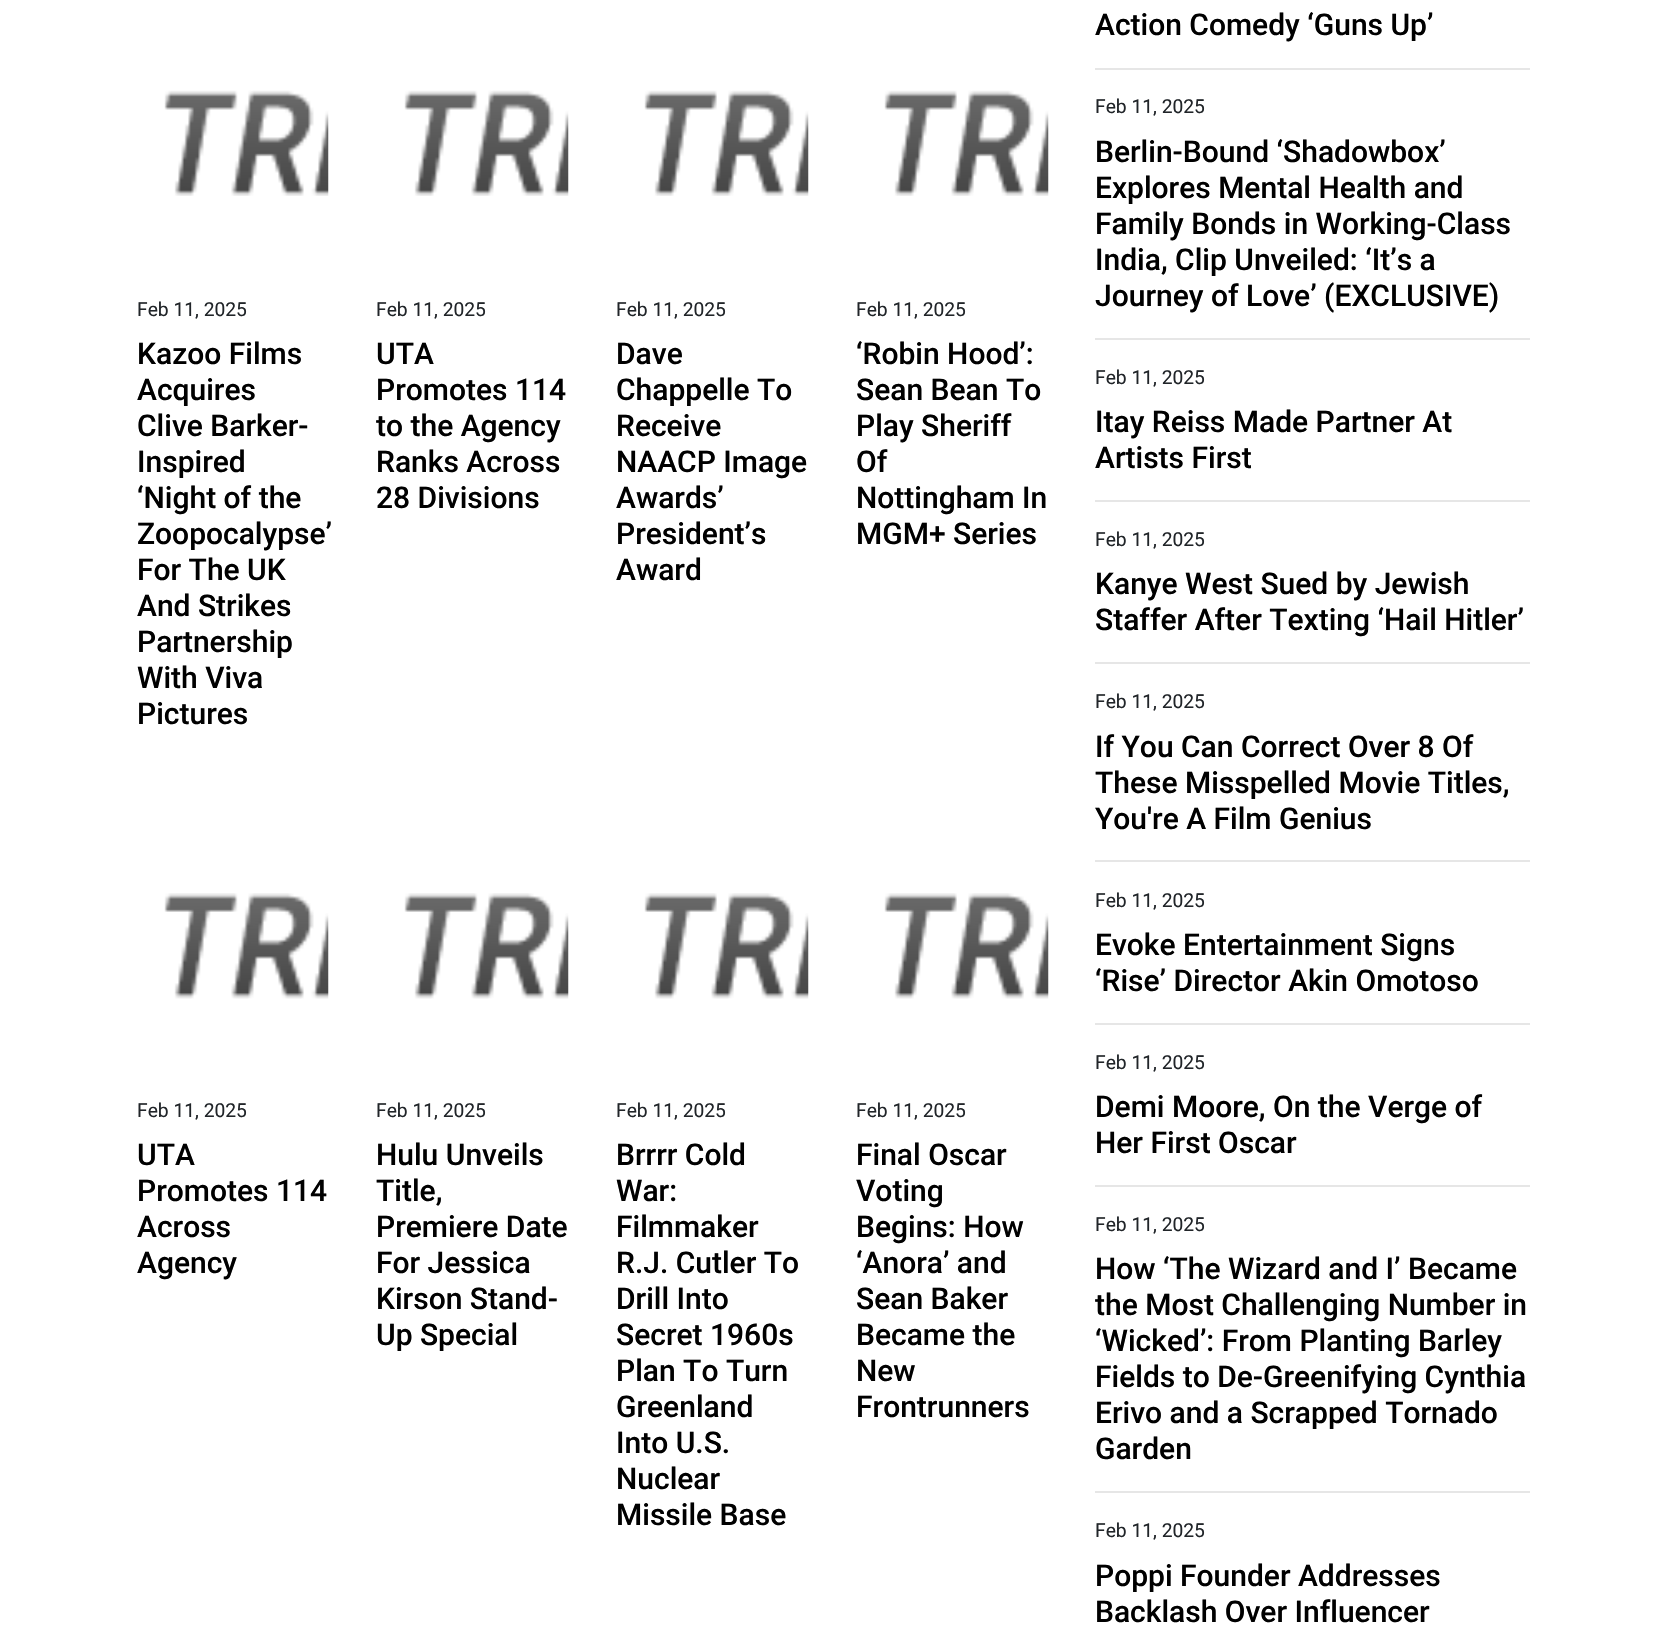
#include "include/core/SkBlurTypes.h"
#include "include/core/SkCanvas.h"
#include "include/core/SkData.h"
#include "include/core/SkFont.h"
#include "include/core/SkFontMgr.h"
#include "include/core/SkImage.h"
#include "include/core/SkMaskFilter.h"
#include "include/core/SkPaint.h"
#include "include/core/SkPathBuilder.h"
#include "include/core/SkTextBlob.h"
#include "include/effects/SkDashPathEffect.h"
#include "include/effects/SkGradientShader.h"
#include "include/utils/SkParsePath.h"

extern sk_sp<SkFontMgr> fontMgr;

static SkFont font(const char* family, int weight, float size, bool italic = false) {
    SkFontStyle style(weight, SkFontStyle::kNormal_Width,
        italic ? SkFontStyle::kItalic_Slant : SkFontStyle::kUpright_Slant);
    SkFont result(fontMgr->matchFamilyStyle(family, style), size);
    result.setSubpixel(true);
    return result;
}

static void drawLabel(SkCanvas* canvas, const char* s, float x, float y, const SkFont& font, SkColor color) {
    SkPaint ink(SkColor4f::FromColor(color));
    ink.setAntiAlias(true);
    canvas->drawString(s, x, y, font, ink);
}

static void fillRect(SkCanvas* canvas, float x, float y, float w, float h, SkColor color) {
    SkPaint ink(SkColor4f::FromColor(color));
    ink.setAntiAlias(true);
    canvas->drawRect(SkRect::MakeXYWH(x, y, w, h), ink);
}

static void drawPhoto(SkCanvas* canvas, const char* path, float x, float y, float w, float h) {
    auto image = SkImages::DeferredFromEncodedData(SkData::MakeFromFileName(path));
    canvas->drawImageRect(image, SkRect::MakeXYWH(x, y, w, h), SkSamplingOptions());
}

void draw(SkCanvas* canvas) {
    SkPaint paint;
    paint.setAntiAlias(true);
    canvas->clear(0xFFFFFFFF);
    drawPhoto(canvas, "assets/img1.png", 164, 90, 165, 106);
    SkFont font1 = font("Roboto", 400, 19.25f);
    drawLabel(canvas, "Feb 11, 2025", 137, 316, font1, 0xFF212529);
    SkFont font2 = font("Roboto", 500, 30);
    drawLabel(canvas, "Kazoo Films", 137, 364, font2, 0xFF000000);
    drawLabel(canvas, "Acquires", 137, 400, font2, 0xFF000000);
    drawLabel(canvas, "Clive Barker-", 137, 436, font2, 0xFF000000);
    drawLabel(canvas, "Inspired", 137, 472, font2, 0xFF000000);
    drawLabel(canvas, "‘Night of the", 137, 508, font2, 0xFF000000);
    drawLabel(canvas, "Zoopocalypse’", 137, 544, font2, 0xFF000000);
    drawLabel(canvas, "For The UK", 137, 580, font2, 0xFF000000);
    drawLabel(canvas, "And Strikes", 137, 616, font2, 0xFF000000);
    drawLabel(canvas, "Partnership", 137, 652, font2, 0xFF000000);
    drawLabel(canvas, "With Viva", 137, 688, font2, 0xFF000000);
    drawLabel(canvas, "Pictures", 137, 724, font2, 0xFF000000);
    drawPhoto(canvas, "assets/img1.png", 404, 90, 165, 106);
    drawLabel(canvas, "Feb 11, 2025", 376, 316, font1, 0xFF212529);
    drawLabel(canvas, "UTA", 376, 364, font2, 0xFF000000);
    drawLabel(canvas, "Promotes 114", 376, 400, font2, 0xFF000000);
    drawLabel(canvas, "to the Agency", 376, 436, font2, 0xFF000000);
    drawLabel(canvas, "Ranks Across", 376, 472, font2, 0xFF000000);
    drawLabel(canvas, "28 Divisions", 376, 508, font2, 0xFF000000);
    drawPhoto(canvas, "assets/img2.png", 644, 90, 165, 106);
    drawLabel(canvas, "Feb 11, 2025", 616, 316, font1, 0xFF212529);
    drawLabel(canvas, "Dave", 616, 364, font2, 0xFF000000);
    drawLabel(canvas, "Chappelle To", 616, 400, font2, 0xFF000000);
    drawLabel(canvas, "Receive", 616, 436, font2, 0xFF000000);
    drawLabel(canvas, "NAACP Image", 616, 472, font2, 0xFF000000);
    drawLabel(canvas, "Awards’", 616, 508, font2, 0xFF000000);
    drawLabel(canvas, "President’s", 616, 544, font2, 0xFF000000);
    drawLabel(canvas, "Award", 616, 580, font2, 0xFF000000);
    drawPhoto(canvas, "assets/img3.png", 884, 90, 165, 106);
    drawLabel(canvas, "Feb 11, 2025", 856, 316, font1, 0xFF212529);
    drawLabel(canvas, "‘Robin Hood’:", 856, 364, font2, 0xFF000000);
    drawLabel(canvas, "Sean Bean To", 856, 400, font2, 0xFF000000);
    drawLabel(canvas, "Play Sheriff", 856, 436, font2, 0xFF000000);
    drawLabel(canvas, "Of", 856, 472, font2, 0xFF000000);
    drawLabel(canvas, "Nottingham In", 856, 508, font2, 0xFF000000);
    drawLabel(canvas, "MGM+ Series", 856, 544, font2, 0xFF000000);
    drawPhoto(canvas, "assets/img4.png", 164, 893, 165, 106);
    drawLabel(canvas, "Feb 11, 2025", 137, 1117, font1, 0xFF212529);
    drawLabel(canvas, "UTA", 137, 1165, font2, 0xFF000000);
    drawLabel(canvas, "Promotes 114", 137, 1201, font2, 0xFF000000);
    drawLabel(canvas, "Across", 137, 1237, font2, 0xFF000000);
    drawLabel(canvas, "Agency", 137, 1273, font2, 0xFF000000);
    drawPhoto(canvas, "assets/img4.png", 404, 893, 165, 106);
    drawLabel(canvas, "Feb 11, 2025", 376, 1117, font1, 0xFF212529);
    drawLabel(canvas, "Hulu Unveils", 376, 1165, font2, 0xFF000000);
    drawLabel(canvas, "Title,", 376, 1201, font2, 0xFF000000);
    drawLabel(canvas, "Premiere Date", 376, 1237, font2, 0xFF000000);
    drawLabel(canvas, "For Jessica", 376, 1273, font2, 0xFF000000);
    drawLabel(canvas, "Kirson Stand-", 376, 1309, font2, 0xFF000000);
    drawLabel(canvas, "Up Special", 376, 1345, font2, 0xFF000000);
    drawPhoto(canvas, "assets/img5.png", 644, 893, 165, 106);
    drawLabel(canvas, "Feb 11, 2025", 616, 1117, font1, 0xFF212529);
    drawLabel(canvas, "Brrrr Cold", 616, 1165, font2, 0xFF000000);
    drawLabel(canvas, "War:", 616, 1201, font2, 0xFF000000);
    drawLabel(canvas, "Filmmaker", 616, 1237, font2, 0xFF000000);
    drawLabel(canvas, "R.J. Cutler To", 616, 1273, font2, 0xFF000000);
    drawLabel(canvas, "Drill Into", 616, 1309, font2, 0xFF000000);
    drawLabel(canvas, "Secret 1960s", 616, 1345, font2, 0xFF000000);
    drawLabel(canvas, "Plan To Turn", 616, 1381, font2, 0xFF000000);
    drawLabel(canvas, "Greenland", 616, 1417, font2, 0xFF000000);
    drawLabel(canvas, "Into U.S.", 616, 1453, font2, 0xFF000000);
    drawLabel(canvas, "Nuclear", 616, 1489, font2, 0xFF000000);
    drawLabel(canvas, "Missile Base", 616, 1525, font2, 0xFF000000);
    drawPhoto(canvas, "assets/img6.png", 884, 893, 165, 106);
    drawLabel(canvas, "Feb 11, 2025", 856, 1117, font1, 0xFF212529);
    drawLabel(canvas, "Final Oscar", 856, 1165, font2, 0xFF000000);
    drawLabel(canvas, "Voting", 856, 1201, font2, 0xFF000000);
    drawLabel(canvas, "Begins: How", 856, 1237, font2, 0xFF000000);
    drawLabel(canvas, "‘Anora’ and", 856, 1273, font2, 0xFF000000);
    drawLabel(canvas, "Sean Baker", 856, 1309, font2, 0xFF000000);
    drawLabel(canvas, "Became the", 856, 1345, font2, 0xFF000000);
    drawLabel(canvas, "New", 856, 1381, font2, 0xFF000000);
    drawLabel(canvas, "Frontrunners", 856, 1417, font2, 0xFF000000);
    drawLabel(canvas, "Action Comedy ‘Guns Up’", 1095, 35, font2, 0xFF000000);
    fillRect(canvas, 1095, 68, 435, 2, 0xFFE6E6E6);
    drawLabel(canvas, "Feb 11, 2025", 1095, 113, font1, 0xFF212529);
    drawLabel(canvas, "Berlin-Bound ‘Shadowbox’", 1095, 162, font2, 0xFF000000);
    drawLabel(canvas, "Explores Mental Health and", 1095, 198, font2, 0xFF000000);
    drawLabel(canvas, "Family Bonds in Working-Class", 1095, 234, font2, 0xFF000000);
    drawLabel(canvas, "India, Clip Unveiled: ‘It’s a", 1095, 270, font2, 0xFF000000);
    drawLabel(canvas, "Journey of Love’ (EXCLUSIVE)", 1095, 306, font2, 0xFF000000);
    fillRect(canvas, 1095, 338, 435, 2, 0xFFE6E6E6);
    drawLabel(canvas, "Feb 11, 2025", 1095, 384, font1, 0xFF212529);
    drawLabel(canvas, "Itay Reiss Made Partner At", 1095, 432, font2, 0xFF000000);
    drawLabel(canvas, "Artists First", 1095, 468, font2, 0xFF000000);
    fillRect(canvas, 1095, 500, 435, 2, 0xFFE6E6E6);
    drawLabel(canvas, "Feb 11, 2025", 1095, 546, font1, 0xFF212529);
    drawLabel(canvas, "Kanye West Sued by Jewish", 1095, 594, font2, 0xFF000000);
    drawLabel(canvas, "Staffer After Texting ‘Hail Hitler’", 1095, 630, font2, 0xFF000000);
    fillRect(canvas, 1095, 662, 435, 2, 0xFFE6E6E6);
    drawLabel(canvas, "Feb 11, 2025", 1095, 708, font1, 0xFF212529);
    drawLabel(canvas, "If You Can Correct Over 8 Of", 1095, 757, font2, 0xFF000000);
    drawLabel(canvas, "These Misspelled Movie Titles,", 1095, 793, font2, 0xFF000000);
    drawLabel(canvas, "You're A Film Genius", 1095, 829, font2, 0xFF000000);
    fillRect(canvas, 1095, 860, 435, 2, 0xFFE6E6E6);
    drawLabel(canvas, "Feb 11, 2025", 1095, 907, font1, 0xFF212529);
    drawLabel(canvas, "Evoke Entertainment Signs", 1095, 955, font2, 0xFF000000);
    drawLabel(canvas, "‘Rise’ Director Akin Omotoso", 1095, 991, font2, 0xFF000000);
    fillRect(canvas, 1095, 1023, 435, 2, 0xFFE6E6E6);
    drawLabel(canvas, "Feb 11, 2025", 1095, 1069, font1, 0xFF212529);
    drawLabel(canvas, "Demi Moore, On the Verge of", 1095, 1117, font2, 0xFF000000);
    drawLabel(canvas, "Her First Oscar", 1095, 1153, font2, 0xFF000000);
    fillRect(canvas, 1095, 1185, 435, 2, 0xFFE6E6E6);
    drawLabel(canvas, "Feb 11, 2025", 1095, 1231, font1, 0xFF212529);
    drawLabel(canvas, "How ‘The Wizard and I’ Became", 1095, 1279, font2, 0xFF000000);
    drawLabel(canvas, "the Most Challenging Number in", 1095, 1315, font2, 0xFF000000);
    drawLabel(canvas, "‘Wicked’: From Planting Barley", 1095, 1351, font2, 0xFF000000);
    drawLabel(canvas, "Fields to De-Greenifying Cynthia", 1095, 1387, font2, 0xFF000000);
    drawLabel(canvas, "Erivo and a Scrapped Tornado", 1095, 1423, font2, 0xFF000000);
    drawLabel(canvas, "Garden", 1095, 1459, font2, 0xFF000000);
    fillRect(canvas, 1095, 1491, 435, 2, 0xFFE6E6E6);
    drawLabel(canvas, "Feb 11, 2025", 1095, 1537, font1, 0xFF212529);
    drawLabel(canvas, "Poppi Founder Addresses", 1095, 1586, font2, 0xFF000000);
    drawLabel(canvas, "Backlash Over Influencer", 1095, 1622, font2, 0xFF000000);
}
